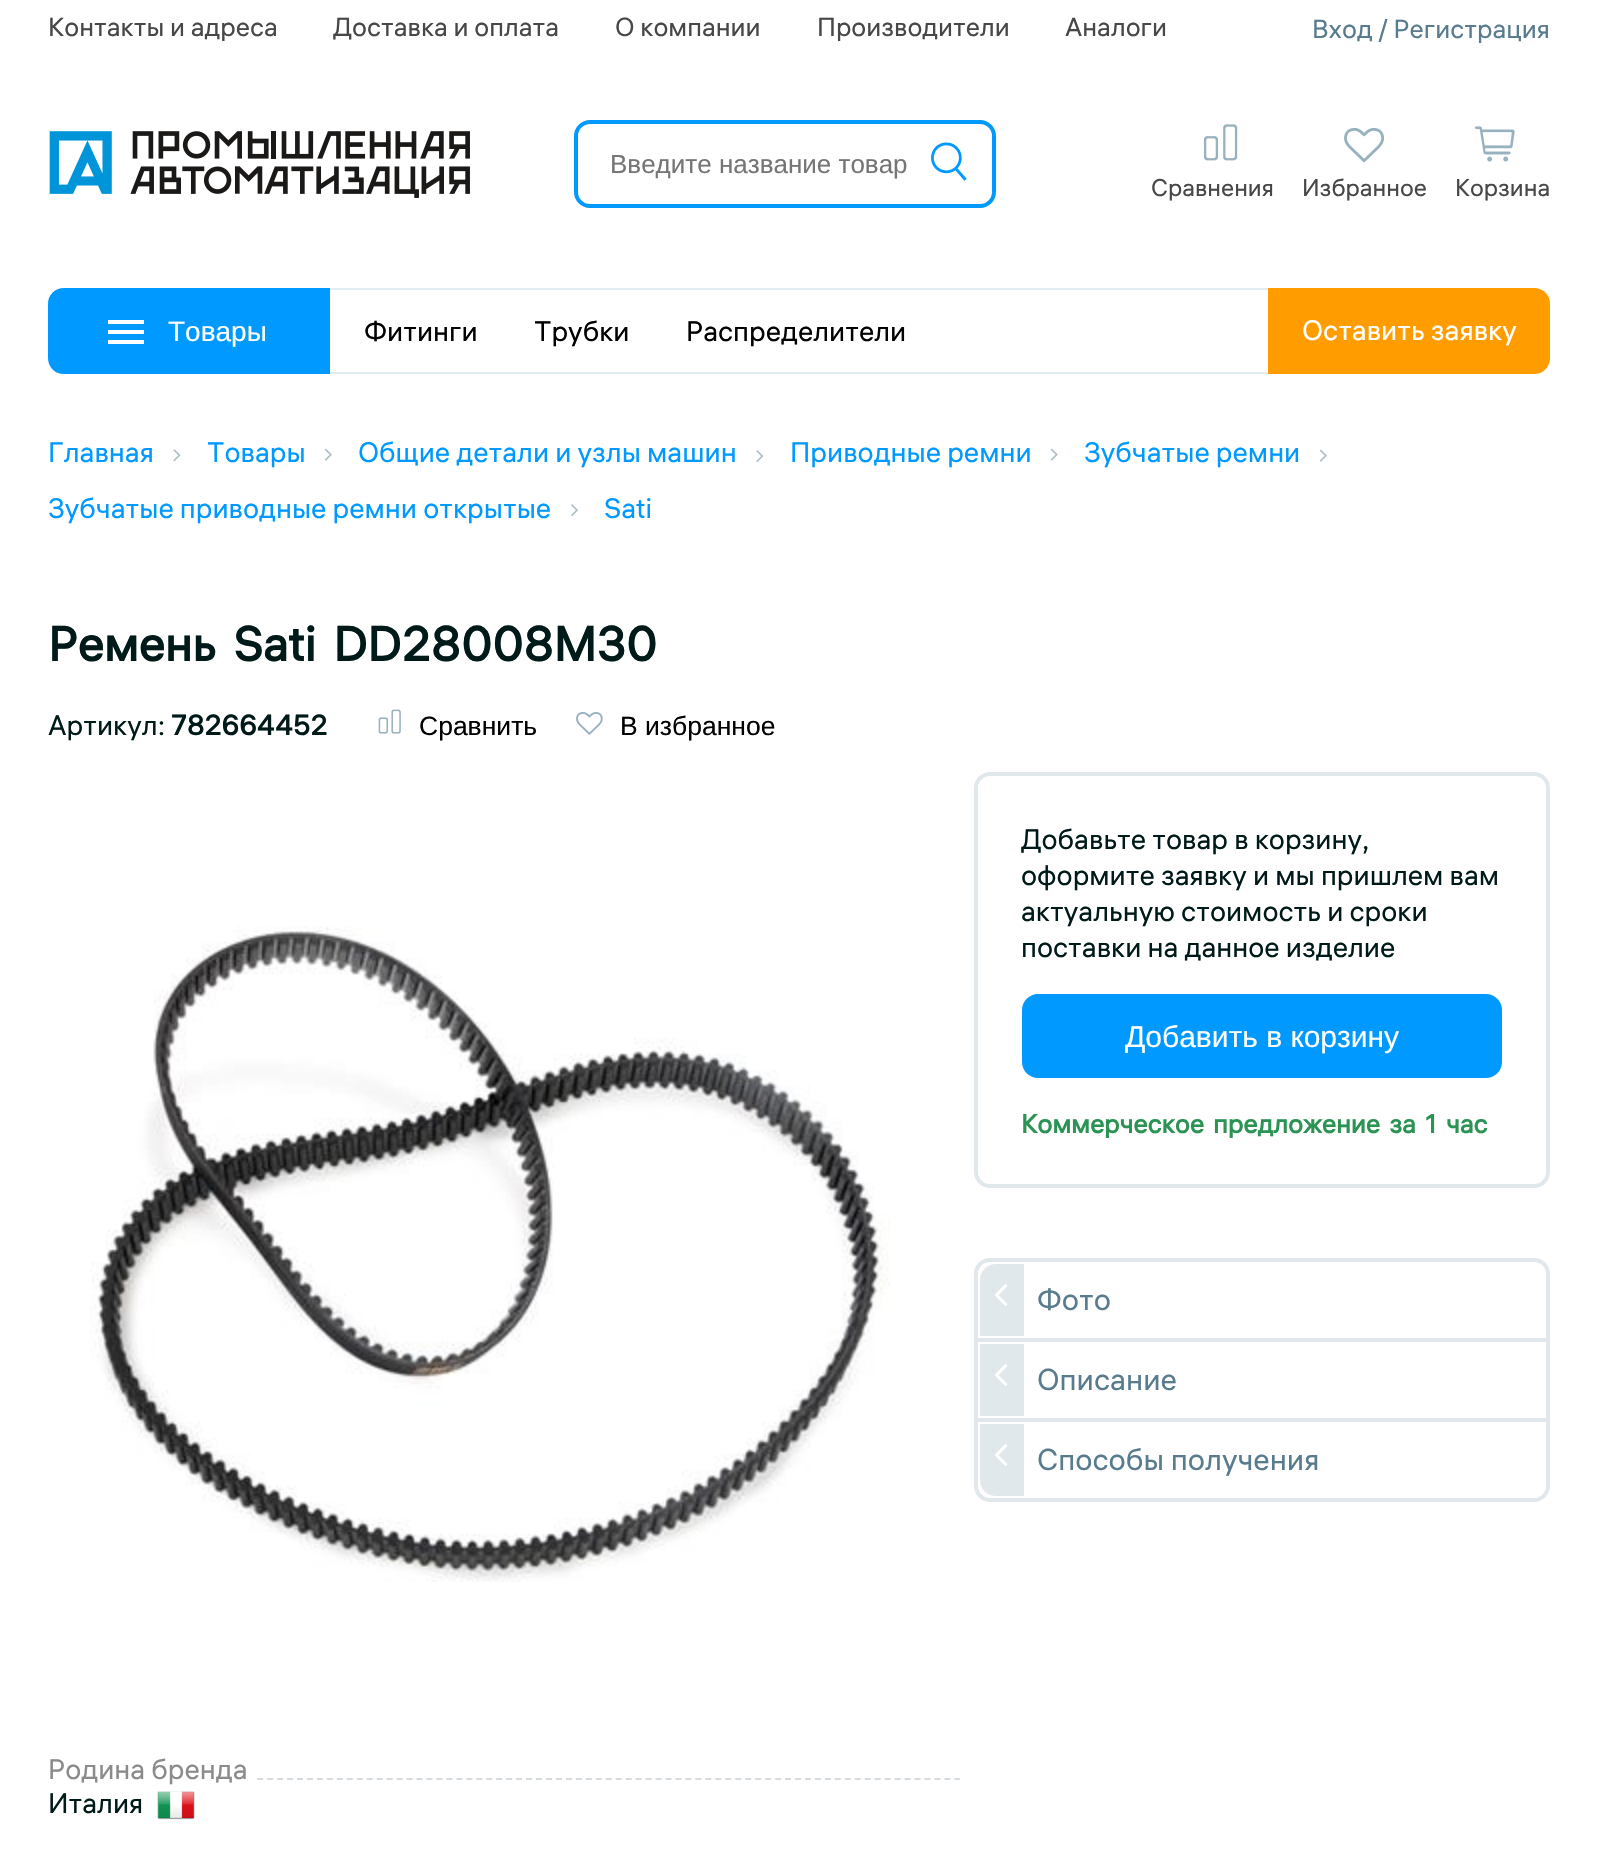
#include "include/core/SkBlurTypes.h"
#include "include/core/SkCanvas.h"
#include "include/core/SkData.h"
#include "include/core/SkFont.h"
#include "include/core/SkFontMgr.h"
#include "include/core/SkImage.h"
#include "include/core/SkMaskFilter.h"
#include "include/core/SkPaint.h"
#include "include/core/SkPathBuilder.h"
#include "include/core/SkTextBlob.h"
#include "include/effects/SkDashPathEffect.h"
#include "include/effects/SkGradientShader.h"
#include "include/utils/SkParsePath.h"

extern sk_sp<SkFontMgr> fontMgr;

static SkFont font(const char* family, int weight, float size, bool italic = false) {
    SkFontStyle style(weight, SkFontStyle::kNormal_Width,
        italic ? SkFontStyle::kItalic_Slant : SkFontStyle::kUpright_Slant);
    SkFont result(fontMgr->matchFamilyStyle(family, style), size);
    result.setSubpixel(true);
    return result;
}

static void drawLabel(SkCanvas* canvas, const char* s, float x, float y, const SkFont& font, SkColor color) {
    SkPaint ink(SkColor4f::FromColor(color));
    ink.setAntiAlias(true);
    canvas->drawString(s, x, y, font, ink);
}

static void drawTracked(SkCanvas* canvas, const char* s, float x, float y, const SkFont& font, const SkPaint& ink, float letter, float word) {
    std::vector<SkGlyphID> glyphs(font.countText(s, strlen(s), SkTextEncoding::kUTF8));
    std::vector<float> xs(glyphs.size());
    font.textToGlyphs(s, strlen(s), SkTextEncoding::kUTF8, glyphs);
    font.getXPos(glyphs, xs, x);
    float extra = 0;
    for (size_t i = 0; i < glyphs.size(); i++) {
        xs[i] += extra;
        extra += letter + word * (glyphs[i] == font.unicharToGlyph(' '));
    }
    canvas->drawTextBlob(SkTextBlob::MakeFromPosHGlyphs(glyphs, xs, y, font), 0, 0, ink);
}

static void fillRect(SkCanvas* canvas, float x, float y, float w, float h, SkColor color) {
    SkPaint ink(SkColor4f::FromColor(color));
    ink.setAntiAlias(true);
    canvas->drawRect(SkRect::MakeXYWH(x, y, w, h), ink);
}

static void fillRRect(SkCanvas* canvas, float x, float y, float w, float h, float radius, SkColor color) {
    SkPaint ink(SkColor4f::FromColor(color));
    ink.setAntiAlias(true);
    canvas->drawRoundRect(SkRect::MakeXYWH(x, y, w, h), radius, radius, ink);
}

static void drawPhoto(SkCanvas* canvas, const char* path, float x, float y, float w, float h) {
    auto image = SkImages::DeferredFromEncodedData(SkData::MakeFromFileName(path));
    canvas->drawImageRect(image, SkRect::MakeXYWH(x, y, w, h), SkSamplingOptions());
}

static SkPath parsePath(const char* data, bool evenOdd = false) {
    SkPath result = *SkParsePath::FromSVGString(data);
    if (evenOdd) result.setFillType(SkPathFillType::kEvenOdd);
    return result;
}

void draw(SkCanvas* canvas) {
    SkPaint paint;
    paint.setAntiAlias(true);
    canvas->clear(0xFFFFFFFF);
    SkFont font1 = font("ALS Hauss", 400, 26, true);
    drawLabel(canvas, "Контакты и адреса", 48, 36, font1, 0xFF474747);
    drawLabel(canvas, "Доставка и оплата", 333, 36, font1, 0xFF474747);
    drawLabel(canvas, "О компании", 615, 36, font1, 0xFF474747);
    drawLabel(canvas, "Производители", 817, 36, font1, 0xFF474747);
    drawLabel(canvas, "Аналоги", 1065, 36, font1, 0xFF474747);
    drawLabel(canvas, "Вход / Регистрация", 1312, 38, font1, 0xFF587B8E);
    drawPhoto(canvas, "assets/img1.png", 49, 131, 421, 67);
    paint.setStroke(true);
    paint.setStrokeWidth(4);
    paint.setColor(0xFF0099FF);
    canvas->drawRoundRect(SkRect::MakeXYWH(576, 122, 418, 84), 14, 14, paint);
    SkFont font2 = font("Liberation Sans", 400, 26);
    drawLabel(canvas, "Введите название товар", 610, 173, font2, 0xFF757575);
    drawPhoto(canvas, "assets/img2.png", 931, 142, 36, 39);
    drawPhoto(canvas, "assets/img3.png", 1204, 124, 34, 37);
    SkFont font3 = font("ALS Hauss", 400, 24, true);
    drawLabel(canvas, "Сравнения", 1151, 196, font3, 0xFF474747);
    drawPhoto(canvas, "assets/img4.png", 1344, 127, 41, 36);
    drawLabel(canvas, "Избранное", 1302, 196, font3, 0xFF474747);
    drawPhoto(canvas, "assets/img5.png", 1474, 126, 41, 36);
    drawLabel(canvas, "Корзина", 1455, 196, font3, 0xFF474747);
    paint.setStroke(false);
    canvas->drawPath(parsePath("M64 289H329V373H64C55.5 373 49 366.5 49 358V304C49 295.5 55.5 289 64 289Z"), paint);
    paint.setStroke(true);
    paint.setStrokeWidth(2);
    canvas->drawPath(parsePath("M64 289H329V373H64C55.5 373 49 366.5 49 358V304C49 295.5 55.5 289 64 289Z"), paint);
    fillRect(canvas, 108, 320, 36, 4, 0xFFFFFFFF);
    fillRect(canvas, 108, 330, 36, 4, 0xFFFFFFFF);
    fillRect(canvas, 108, 340, 36, 4, 0xFFFFFFFF);
    SkFont font4 = font("Liberation Sans", 400, 28);
    drawLabel(canvas, "Товары", 168, 341, font4, 0xFFFFFFFF);
    fillRect(canvas, 330, 288, 938, 2, 0xFFE2ECF3);
    fillRect(canvas, 330, 372, 938, 2, 0xFFE2ECF3);
    SkFont font5 = font("ALS Hauss", 400, 28, true);
    drawLabel(canvas, "Фитинги", 364, 341, font5, 0xFF000000);
    drawLabel(canvas, "Трубки", 534, 341, font5, 0xFF000000);
    drawLabel(canvas, "Распределители", 686, 341, font5, 0xFF000000);
    paint.setStroke(false);
    paint.setColor(0xFFFF9C00);
    canvas->drawPath(parsePath("M1269 289H1534C1542.5 289 1549 295.5 1549 304V358C1549 366.5 1542.5 373 1534 373H1269Z"), paint);
    paint.setStroke(true);
    canvas->drawPath(parsePath("M1269 289H1534C1542.5 289 1549 295.5 1549 304V358C1549 366.5 1542.5 373 1534 373H1269Z"), paint);
    drawLabel(canvas, "Оставить заявку", 1302, 340, font5, 0xFFFFFFFF);
    drawLabel(canvas, "Главная", 48, 462, font5, 0xFF0099FF);
    drawPhoto(canvas, "assets/img6.png", 173, 449, 8, 13);
    drawLabel(canvas, "Товары", 207, 462, font5, 0xFF0099FF);
    drawPhoto(canvas, "assets/img7.png", 324, 448, 8, 13);
    drawLabel(canvas, "Общие детали и узлы машин", 358, 462, font5, 0xFF0099FF);
    drawPhoto(canvas, "assets/img8.png", 756, 450, 8, 13);
    drawLabel(canvas, "Приводные ремни", 790, 462, font5, 0xFF0099FF);
    drawPhoto(canvas, "assets/img9.png", 1050, 448, 8, 13);
    drawLabel(canvas, "Зубчатые ремни", 1084, 462, font5, 0xFF0099FF);
    drawPhoto(canvas, "assets/img7.png", 1319, 449, 8, 13);
    drawLabel(canvas, "Зубчатые приводные ремни открытые", 48, 518, font5, 0xFF0099FF);
    drawPhoto(canvas, "assets/img10.png", 571, 504, 7, 12);
    drawLabel(canvas, "Sati", 604, 518, font5, 0xFF0099FF);
    SkFont font6 = font("ALS Hauss", 700, 48, true);
    paint.setStroke(false);
    paint.setColor(0xFF001A1A);
    drawTracked(canvas, "Ремень Sati DD28008M30", 48, 661, font6, paint, 0, 7);
    drawLabel(canvas, "Артикул:", 48, 735, font5, 0xFF001A1A);
    SkFont font7 = font("ALS Hauss", 700, 28, true);
    drawLabel(canvas, "782664452", 171, 735, font7, 0xFF001A1A);
    drawPhoto(canvas, "assets/img11.png", 378, 709, 23, 25);
    SkFont font8 = font("Liberation Sans", 400, 26.5f);
    drawLabel(canvas, "Сравнить", 419, 735, font8, 0xFF000000);
    drawPhoto(canvas, "assets/img12.png", 576, 711, 27, 24);
    drawLabel(canvas, "В избранное", 620, 735, font8, 0xFF000000);
    paint.setStroke(true);
    paint.setStrokeWidth(4);
    paint.setColor(0xFFE1E8EC);
    canvas->drawRoundRect(SkRect::MakeXYWH(976, 774, 572, 412), 14, 14, paint);
    drawLabel(canvas, "Добавьте товар в корзину,", 1021, 849, font5, 0xFF001A1A);
    drawLabel(canvas, "оформите заявку и мы пришлем вам", 1021, 885, font5, 0xFF001A1A);
    drawLabel(canvas, "актуальную стоимость и сроки", 1021, 921, font5, 0xFF001A1A);
    drawLabel(canvas, "поставки на данное изделие", 1021, 957, font5, 0xFF001A1A);
    fillRRect(canvas, 1022, 994, 480, 84, 16, 0xFF0099FF);
    SkFont font9 = font("Liberation Sans", 400, 30);
    drawLabel(canvas, "Добавить в корзину", 1125, 1047, font9, 0xFFFFFFFF);
    SkFont font10 = font("ALS Hauss", 700, 26, true);
    paint.setStroke(false);
    paint.setColor(0xFF2B9353);
    drawTracked(canvas, "Коммерческое предложение за 1 час", 1021, 1133, font10, paint, 0, 3.5f);
    paint.setColor(0xFFE1E8EC);
    canvas->drawPath(parsePath("M990 1258H1534C1543 1258 1550 1265 1550 1274V1338H974V1274C974 1265 981 1258 990 1258ZM990 1262H1534C1541 1262 1546 1267 1546 1274V1338H978V1274C978 1267 983 1262 990 1262Z", true), paint);
    canvas->drawPath(parsePath("M996 1264H1024V1336H980V1280C980 1271 987 1264 996 1264Z"), paint);
    drawPhoto(canvas, "assets/img13.png", 994, 1284, 14, 22);
    SkFont font11 = font("ALS Hauss", 400, 30, true);
    drawLabel(canvas, "Фото", 1037, 1310, font11, 0xFF587B8E);
    fillRect(canvas, 974, 1338, 576, 4, 0xFFE1E8EC);
    fillRect(canvas, 1546, 1338, 4, 80, 0xFFE1E8EC);
    fillRect(canvas, 974, 1338, 4, 80, 0xFFE1E8EC);
    fillRect(canvas, 980, 1344, 44, 72, 0xFFE1E8EC);
    drawPhoto(canvas, "assets/img13.png", 994, 1364, 14, 22);
    drawLabel(canvas, "Описание", 1037, 1390, font11, 0xFF587B8E);
    paint.setStroke(true);
    canvas->drawPath(parsePath("M976 1420H1548V1486C1548 1493.5 1541.5 1500 1534 1500H990C982.5 1500 976 1493.5 976 1486Z"), paint);
    paint.setStroke(false);
    canvas->drawPath(parsePath("M980 1424H1024V1496H996C987 1496 980 1489 980 1480Z"), paint);
    drawPhoto(canvas, "assets/img13.png", 994, 1444, 14, 22);
    drawLabel(canvas, "Способы получения", 1037, 1470, font11, 0xFF587B8E);
    drawPhoto(canvas, "assets/img14.png", 90, 926, 800, 656);
    paint.setStroke(true);
    paint.setStrokeWidth(2);
    paint.setColor(0xFFD6DBE0);
    paint.setPathEffect(SkDashPathEffect::Make({{6, 3.96f}}, 0));
    canvas->drawPath(parsePath("M48 1779H960"), paint);
    paint.setPathEffect(nullptr);
    fillRect(canvas, 48, 1778, 206, 2, 0xFFFFFFFF);
    drawLabel(canvas, "Родина бренда", 48, 1779, font5, 0xFF8B8B8B);
    drawLabel(canvas, "Италия", 48, 1813, font5, 0xFF001A1A);
    drawPhoto(canvas, "assets/img15.png", 157, 1791, 38, 29);
}
